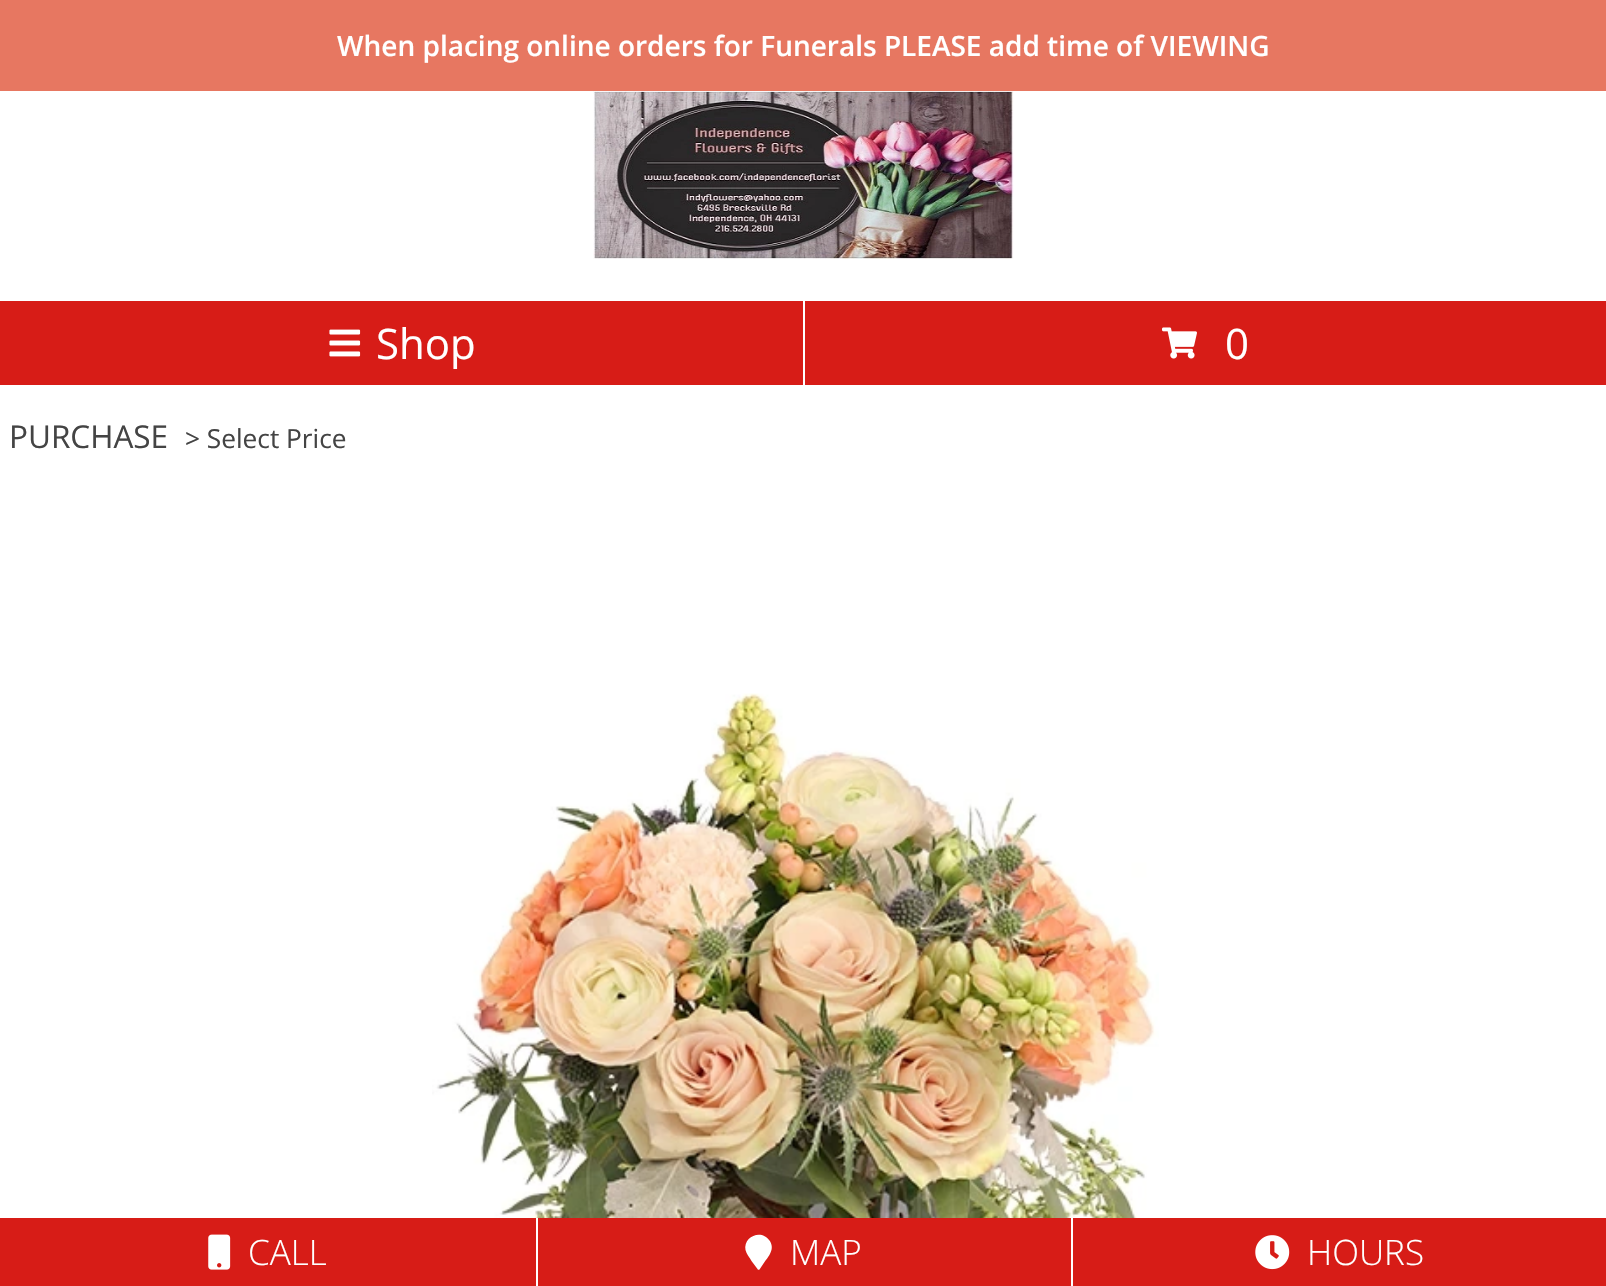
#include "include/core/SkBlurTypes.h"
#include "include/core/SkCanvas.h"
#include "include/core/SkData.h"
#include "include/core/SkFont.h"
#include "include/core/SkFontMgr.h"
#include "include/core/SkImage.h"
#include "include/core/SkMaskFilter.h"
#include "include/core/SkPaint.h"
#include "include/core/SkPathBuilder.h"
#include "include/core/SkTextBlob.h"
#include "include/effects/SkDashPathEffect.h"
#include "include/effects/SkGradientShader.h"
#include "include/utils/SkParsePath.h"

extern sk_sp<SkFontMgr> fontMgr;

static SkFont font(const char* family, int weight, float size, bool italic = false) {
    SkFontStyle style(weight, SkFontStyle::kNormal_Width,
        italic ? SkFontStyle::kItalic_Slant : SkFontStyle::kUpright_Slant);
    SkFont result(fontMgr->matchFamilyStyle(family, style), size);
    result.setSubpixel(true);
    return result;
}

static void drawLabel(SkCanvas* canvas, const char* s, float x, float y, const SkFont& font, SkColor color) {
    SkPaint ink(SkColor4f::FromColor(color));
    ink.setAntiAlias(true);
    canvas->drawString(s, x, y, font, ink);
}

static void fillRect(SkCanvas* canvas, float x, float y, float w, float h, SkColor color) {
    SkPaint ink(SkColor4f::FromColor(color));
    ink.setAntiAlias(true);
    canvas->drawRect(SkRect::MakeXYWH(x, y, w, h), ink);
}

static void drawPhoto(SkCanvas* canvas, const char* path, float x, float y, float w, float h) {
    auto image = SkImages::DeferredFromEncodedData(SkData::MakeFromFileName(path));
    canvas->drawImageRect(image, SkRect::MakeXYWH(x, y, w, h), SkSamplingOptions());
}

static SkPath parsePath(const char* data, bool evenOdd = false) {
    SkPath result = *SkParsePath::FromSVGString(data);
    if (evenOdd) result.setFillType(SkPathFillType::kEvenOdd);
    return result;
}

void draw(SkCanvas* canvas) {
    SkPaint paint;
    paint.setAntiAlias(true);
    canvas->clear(0xFFFFFFFF);
    fillRect(canvas, 0, 0, 1606, 91, 0xFFE77761);
    SkFont font1 = font("Open Sans", 600, 28);
    drawLabel(canvas, "When placing online orders for Funerals PLEASE add time of VIEWING", 337, 56, font1, 0xFFFFFFFF);
    drawPhoto(canvas, "assets/img1.png", 593, 91, 421, 168);
    fillRect(canvas, 0, 301, 803, 84, 0xFFD71C17);
    drawPhoto(canvas, "assets/img2.png", 329, 329, 32, 28);
    SkFont font2 = font("Open Sans", 400, 42);
    drawLabel(canvas, "Shop", 376, 359, font2, 0xFFFFFFFF);
    fillRect(canvas, 805, 301, 801, 84, 0xFFD71C17);
    drawPhoto(canvas, "assets/img3.png", 1162, 327, 35, 32);
    drawLabel(canvas, "0", 1225, 359, font2, 0xFFFFFFFF);
    SkFont font3 = font("Open Sans", 400, 31.5f);
    drawLabel(canvas, "PURCHASE", 9, 448, font3, 0xFF444444);
    SkFont font4 = font("Open Sans", 400, 26.25f);
    drawLabel(canvas, "> Select Price", 185, 448, font4, 0xFF444444);
    drawPhoto(canvas, "assets/img4.png", 432, 693, 727, 525);
    fillRect(canvas, 0, 1218, 536, 68, 0xFFD71C17);
    drawPhoto(canvas, "assets/img5.png", 208, 1234, 23, 36);
    SkFont font5 = font("Open Sans", 300, 35);
    drawLabel(canvas, "CALL", 248, 1265, font5, 0xFFFFFFFF);
    fillRect(canvas, 538, 1218, 533, 68, 0xFFD71C17);
    paint.setColor(0xFFFFFFFF);
    canvas->drawPath(parsePath("M757.5 1269L751.5 1261C749.5 1257.5 746.5 1254 745.5 1250C743 1236.5 761.5 1228.5 769.5 1240.5C775.5 1249 768.5 1256.5 763.5 1263.5L759.5 1269.5C758.5 1270 757.5 1269.5 757.5 1269Z"), paint);
    drawLabel(canvas, "MAP", 790, 1265, font5, 0xFFFFFFFF);
    fillRect(canvas, 1073, 1218, 533, 68, 0xFFD71C17);
    drawPhoto(canvas, "assets/img6.png", 1255, 1235, 35, 35);
    drawLabel(canvas, "HOURS", 1307, 1265, font5, 0xFFFFFFFF);
}
